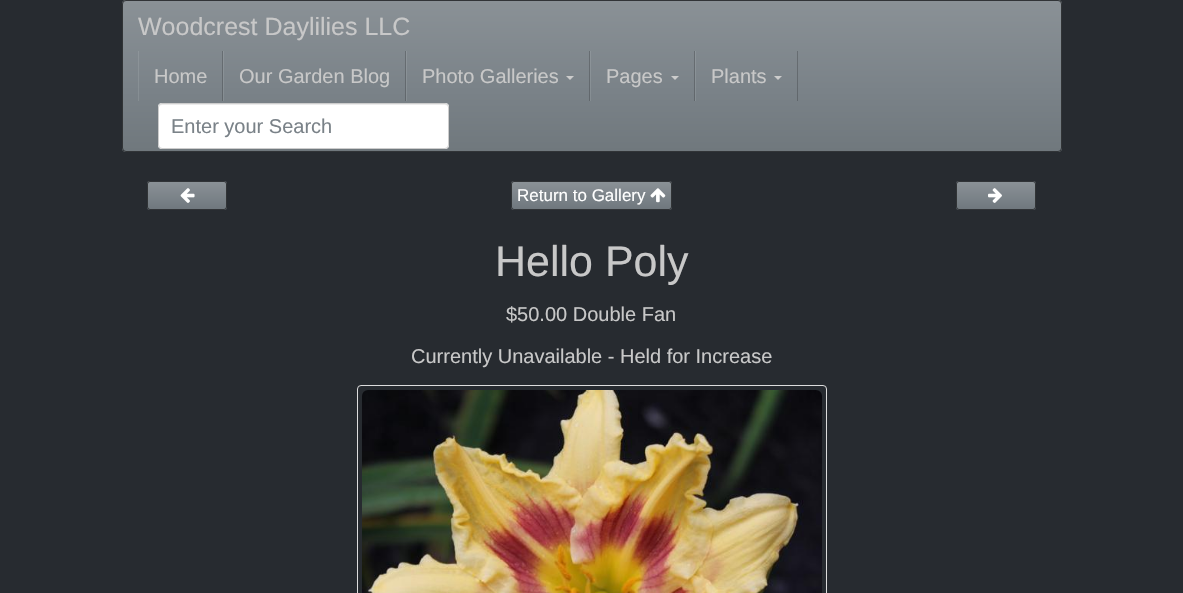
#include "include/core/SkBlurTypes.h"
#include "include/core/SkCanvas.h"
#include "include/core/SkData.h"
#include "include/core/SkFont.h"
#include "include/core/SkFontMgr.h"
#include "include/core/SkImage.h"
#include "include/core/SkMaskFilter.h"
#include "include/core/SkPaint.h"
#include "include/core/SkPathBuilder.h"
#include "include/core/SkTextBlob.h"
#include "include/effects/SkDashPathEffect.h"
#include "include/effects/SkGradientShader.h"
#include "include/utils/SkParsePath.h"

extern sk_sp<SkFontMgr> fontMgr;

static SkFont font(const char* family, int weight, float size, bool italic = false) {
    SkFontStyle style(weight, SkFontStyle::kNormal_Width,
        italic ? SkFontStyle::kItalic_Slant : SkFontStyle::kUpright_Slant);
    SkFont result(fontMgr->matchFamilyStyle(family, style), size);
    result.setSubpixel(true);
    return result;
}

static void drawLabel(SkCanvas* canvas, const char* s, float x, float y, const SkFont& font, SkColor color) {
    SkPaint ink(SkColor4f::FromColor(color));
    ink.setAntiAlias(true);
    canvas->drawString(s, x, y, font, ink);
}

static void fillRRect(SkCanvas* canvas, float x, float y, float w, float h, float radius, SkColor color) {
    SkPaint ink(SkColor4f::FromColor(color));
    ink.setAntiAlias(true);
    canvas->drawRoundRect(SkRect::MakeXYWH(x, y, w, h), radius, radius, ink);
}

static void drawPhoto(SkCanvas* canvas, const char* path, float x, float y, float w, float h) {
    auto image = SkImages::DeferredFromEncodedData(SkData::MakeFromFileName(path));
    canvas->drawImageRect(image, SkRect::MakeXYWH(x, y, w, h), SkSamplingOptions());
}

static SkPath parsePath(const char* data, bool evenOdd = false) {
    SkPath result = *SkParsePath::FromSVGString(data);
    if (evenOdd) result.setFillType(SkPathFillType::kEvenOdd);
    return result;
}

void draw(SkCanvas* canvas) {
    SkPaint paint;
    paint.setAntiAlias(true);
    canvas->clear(0xFF272B30);
    fillRRect(canvas, 122, 0, 940, 152, 4, 0xFF7A8288);
    canvas->save();
    canvas->clipPath(parsePath("M126 0H1058C1060 0 1062 2 1062 4V148C1062 150 1060 152 1058 152H126C124 152 122 150 122 148V4C122 2 124 0 126 0Z"), true);
    {
        const SkColor colors[] = {0xFF8A9196, 0xFF7A8288, 0xFF70787D};
        const float stops[] = {0, 0.6f, 1};
        const SkPoint ends[] = {{592, 1}, {592, 151}};
        paint.setShader(SkGradientShader::MakeLinear(ends, colors, stops, 3, SkTileMode::kClamp));
        paint.setAlpha(255);
    }
    canvas->drawRect(SkRect::MakeXYWH(123, 1, 938, 150), paint);
    canvas->restore();
    {
        const SkColor colors[] = {0xFF969CA1, 0xFF878F94, 0xFF7E868A};
        const float stops[] = {0, 0.6f, 1};
        const SkPoint ends[] = {{592, 1}, {592, 151}};
        paint.setShader(SkGradientShader::MakeLinear(ends, colors, stops, 3, SkTileMode::kClamp));
        paint.setAlpha(255);
    }
    canvas->drawRect(SkRect::MakeXYWH(695, 51, 1, 50), paint);
    {
        const SkColor colors[] = {0xFF6E7478, 0xFF62686D, 0xFF5A6064};
        const float stops[] = {0, 0.6f, 1};
        const SkPoint ends[] = {{592, 1}, {592, 151}};
        paint.setShader(SkGradientShader::MakeLinear(ends, colors, stops, 3, SkTileMode::kClamp));
        paint.setAlpha(255);
    }
    canvas->drawRect(SkRect::MakeXYWH(797, 51, 1, 50), paint);
    {
        const SkColor colors[] = {0xFF969CA1, 0xFF878F94, 0xFF7E868A};
        const float stops[] = {0, 0.6f, 1};
        const SkPoint ends[] = {{592, 1}, {592, 151}};
        paint.setShader(SkGradientShader::MakeLinear(ends, colors, stops, 3, SkTileMode::kClamp));
        paint.setAlpha(255);
    }
    canvas->drawRect(SkRect::MakeXYWH(590, 51, 1, 50), paint);
    {
        const SkColor colors[] = {0xFF6E7478, 0xFF62686D, 0xFF5A6064};
        const float stops[] = {0, 0.6f, 1};
        const SkPoint ends[] = {{592, 1}, {592, 151}};
        paint.setShader(SkGradientShader::MakeLinear(ends, colors, stops, 3, SkTileMode::kClamp));
        paint.setAlpha(255);
    }
    canvas->drawRect(SkRect::MakeXYWH(694, 51, 1, 50), paint);
    {
        const SkColor colors[] = {0xFF969CA1, 0xFF878F94, 0xFF7E868A};
        const float stops[] = {0, 0.6f, 1};
        const SkPoint ends[] = {{592, 1}, {592, 151}};
        paint.setShader(SkGradientShader::MakeLinear(ends, colors, stops, 3, SkTileMode::kClamp));
        paint.setAlpha(255);
    }
    canvas->drawRect(SkRect::MakeXYWH(406, 51, 1, 50), paint);
    {
        const SkColor colors[] = {0xFF6E7478, 0xFF62686D, 0xFF5A6064};
        const float stops[] = {0, 0.6f, 1};
        const SkPoint ends[] = {{592, 1}, {592, 151}};
        paint.setShader(SkGradientShader::MakeLinear(ends, colors, stops, 3, SkTileMode::kClamp));
        paint.setAlpha(255);
    }
    canvas->drawRect(SkRect::MakeXYWH(589, 51, 1, 50), paint);
    {
        const SkColor colors[] = {0xFF969CA1, 0xFF878F94, 0xFF7E868A};
        const float stops[] = {0, 0.6f, 1};
        const SkPoint ends[] = {{592, 1}, {592, 151}};
        paint.setShader(SkGradientShader::MakeLinear(ends, colors, stops, 3, SkTileMode::kClamp));
        paint.setAlpha(255);
    }
    canvas->drawRect(SkRect::MakeXYWH(223, 51, 1, 50), paint);
    {
        const SkColor colors[] = {0xFF6E7478, 0xFF62686D, 0xFF5A6064};
        const float stops[] = {0, 0.6f, 1};
        const SkPoint ends[] = {{592, 1}, {592, 151}};
        paint.setShader(SkGradientShader::MakeLinear(ends, colors, stops, 3, SkTileMode::kClamp));
        paint.setAlpha(255);
    }
    canvas->drawRect(SkRect::MakeXYWH(405, 51, 1, 50), paint);
    {
        const SkColor colors[] = {0xFF969CA1, 0xFF878F94, 0xFF7E868A};
        const float stops[] = {0, 0.6f, 1};
        const SkPoint ends[] = {{592, 1}, {592, 151}};
        paint.setShader(SkGradientShader::MakeLinear(ends, colors, stops, 3, SkTileMode::kClamp));
        paint.setAlpha(255);
    }
    canvas->drawRect(SkRect::MakeXYWH(138, 51, 1, 50), paint);
    {
        const SkColor colors[] = {0xFF6E7478, 0xFF62686D, 0xFF5A6064};
        const float stops[] = {0, 0.6f, 1};
        const SkPoint ends[] = {{592, 1}, {592, 151}};
        paint.setShader(SkGradientShader::MakeLinear(ends, colors, stops, 3, SkTileMode::kClamp));
        paint.setAlpha(255);
    }
    canvas->drawRect(SkRect::MakeXYWH(222, 51, 1, 50), paint);
    paint.setStroke(true);
    paint.setStrokeWidth(1);
    paint.setShader(nullptr);
    paint.setColor(0x99000000);
    canvas->drawRoundRect(SkRect::MakeXYWH(122.5f, 0.5f, 939, 151), 3.5f, 3.5f, paint);
    SkFont font1 = font("Liberation Sans", 400, 25);
    drawLabel(canvas, "Woodcrest Daylilies LLC", 138, 35, font1, 0xFFC8C8C8);
    SkFont font2 = font("Liberation Sans", 400, 20);
    drawLabel(canvas, "Home", 154, 83, font2, 0xFFC8C8C8);
    drawLabel(canvas, "Our Garden Blog", 239, 83, font2, 0xFFC8C8C8);
    drawLabel(canvas, "Photo Galleries", 422, 83, font2, 0xFFC8C8C8);
    paint.setStroke(false);
    paint.setColor(0xFFCCCCCC);
    canvas->drawPath(parsePath("M566 76H574L570 80Z"), paint);
    drawLabel(canvas, "Pages", 606, 83, font2, 0xFFC8C8C8);
    canvas->drawPath(parsePath("M671 76H679L675 80Z"), paint);
    drawLabel(canvas, "Plants", 711, 83, font2, 0xFFC8C8C8);
    canvas->drawPath(parsePath("M774 76H782L778 80Z"), paint);
    fillRRect(canvas, 158, 103, 291, 46, 4, 0xFFFFFFFF);
    paint.setColor(0xFFECECEC);
    canvas->drawPath(parsePath("M162 105H445C447 105 448 106 448 108C448 106 447 104 445 104H162C160 104 159 106 159 108C159 106 160 105 162 105Z"), paint);
    paint.setStroke(true);
    paint.setColor(0xFFCCCCCC);
    canvas->drawRoundRect(SkRect::MakeXYWH(158.5f, 103.5f, 290, 45), 3.5f, 3.5f, paint);
    drawLabel(canvas, "Enter your Search", 171, 133, font2, 0xFF7A8288);
    fillRRect(canvas, 147, 181, 80, 29, 3, 0xFF7A8288);
    paint.setStroke(false);
    {
        const SkColor colors[] = {0xFF8A9196, 0xFF7A8288, 0xFF70787D};
        const float stops[] = {0, 0.6f, 1};
        const SkPoint ends[] = {{187, 182}, {187, 209}};
        paint.setShader(SkGradientShader::MakeLinear(ends, colors, stops, 3, SkTileMode::kClamp));
        paint.setAlpha(255);
    }
    canvas->drawRect(SkRect::MakeXYWH(148, 182, 78, 27), paint);
    paint.setStroke(true);
    paint.setShader(nullptr);
    paint.setColor(0x99000000);
    canvas->drawRoundRect(SkRect::MakeXYWH(147.5f, 181.5f, 79, 28), 2.5f, 2.5f, paint);
    drawPhoto(canvas, "assets/img1.png", 180, 188, 15, 15);
    fillRRect(canvas, 511, 181, 161, 29, 3, 0xFF7A8288);
    paint.setStroke(false);
    {
        const SkColor colors[] = {0xFF8A9196, 0xFF7A8288, 0xFF70787D};
        const float stops[] = {0, 0.6f, 1};
        const SkPoint ends[] = {{592, 182}, {592, 209}};
        paint.setShader(SkGradientShader::MakeLinear(ends, colors, stops, 3, SkTileMode::kClamp));
        paint.setAlpha(255);
    }
    canvas->drawRect(SkRect::MakeXYWH(512, 182, 159, 27), paint);
    paint.setStroke(true);
    paint.setShader(nullptr);
    paint.setColor(0x99000000);
    canvas->drawRoundRect(SkRect::MakeXYWH(511.5f, 181.5f, 160, 28), 2.5f, 2.5f, paint);
    SkFont font3 = font("Liberation Sans", 400, 17);
    drawLabel(canvas, "Return to Gallery", 517, 201, font3, 0xFFFFFFFF);
    drawPhoto(canvas, "assets/img2.png", 650, 188, 16, 15);
    fillRRect(canvas, 956, 181, 80, 29, 3, 0xFF7A8288);
    paint.setStroke(false);
    {
        const SkColor colors[] = {0xFF8A9196, 0xFF7A8288, 0xFF70787D};
        const float stops[] = {0, 0.6f, 1};
        const SkPoint ends[] = {{996, 182}, {996, 209}};
        paint.setShader(SkGradientShader::MakeLinear(ends, colors, stops, 3, SkTileMode::kClamp));
        paint.setAlpha(255);
    }
    canvas->drawRect(SkRect::MakeXYWH(957, 182, 78, 27), paint);
    paint.setStroke(true);
    paint.setShader(nullptr);
    paint.setColor(0x99000000);
    canvas->drawRoundRect(SkRect::MakeXYWH(956.5f, 181.5f, 79, 28), 2.5f, 2.5f, paint);
    drawPhoto(canvas, "assets/img3.png", 988, 188, 14, 15);
    SkFont font4 = font("Liberation Sans", 400, 43);
    drawLabel(canvas, "Hello Poly", 495, 276, font4, 0xFFC8C8C8);
    drawLabel(canvas, "$50.00 Double Fan", 506, 321, font2, 0xFFC8C8C8);
    drawLabel(canvas, "Currently Unavailable - Held for Increase", 411, 363, font2, 0xFFC8C8C8);
    paint.setColor(0xFFDDDDDD);
    canvas->drawRoundRect(SkRect::MakeXYWH(357.5f, 385.5f, 469, 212), 3.5f, 3.5f, paint);
    drawPhoto(canvas, "assets/img4.png", 362, 390, 460, 203);
}
